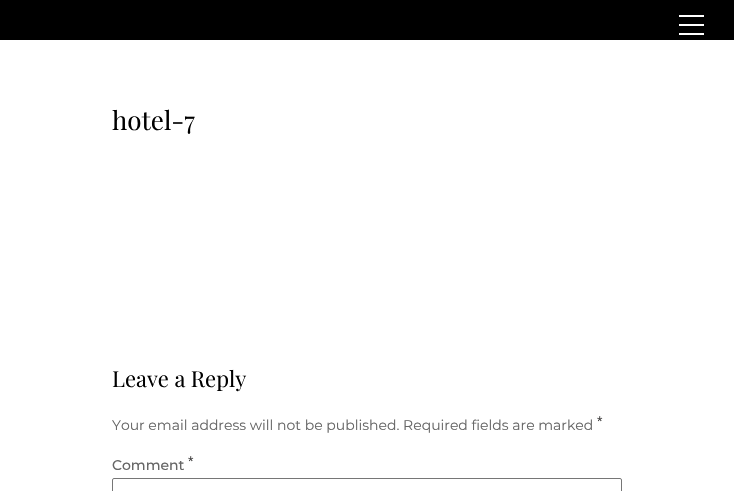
#include "include/core/SkBlurTypes.h"
#include "include/core/SkCanvas.h"
#include "include/core/SkData.h"
#include "include/core/SkFont.h"
#include "include/core/SkFontMgr.h"
#include "include/core/SkImage.h"
#include "include/core/SkMaskFilter.h"
#include "include/core/SkPaint.h"
#include "include/core/SkPathBuilder.h"
#include "include/core/SkTextBlob.h"
#include "include/effects/SkDashPathEffect.h"
#include "include/effects/SkGradientShader.h"
#include "include/utils/SkParsePath.h"

extern sk_sp<SkFontMgr> fontMgr;

static SkFont font(const char* family, int weight, float size, bool italic = false) {
    SkFontStyle style(weight, SkFontStyle::kNormal_Width,
        italic ? SkFontStyle::kItalic_Slant : SkFontStyle::kUpright_Slant);
    SkFont result(fontMgr->matchFamilyStyle(family, style), size);
    result.setSubpixel(true);
    return result;
}

static void drawLabel(SkCanvas* canvas, const char* s, float x, float y, const SkFont& font, SkColor color) {
    SkPaint ink(SkColor4f::FromColor(color));
    ink.setAntiAlias(true);
    canvas->drawString(s, x, y, font, ink);
}

static void fillRect(SkCanvas* canvas, float x, float y, float w, float h, SkColor color) {
    SkPaint ink(SkColor4f::FromColor(color));
    ink.setAntiAlias(true);
    canvas->drawRect(SkRect::MakeXYWH(x, y, w, h), ink);
}

void draw(SkCanvas* canvas) {
    SkPaint paint;
    paint.setAntiAlias(true);
    canvas->clear(0xFFFFFFFF);
    fillRect(canvas, 0, 0, 734, 40, 0xFF000000);
    fillRect(canvas, 679, 33, 25, 2, 0xFFFFFFFF);
    fillRect(canvas, 679, 15, 25, 2, 0xFFFFFFFF);
    fillRect(canvas, 679, 24, 25, 2, 0xFFFFFFFF);
    SkFont font1 = font("Playfair Display", 400, 26);
    drawLabel(canvas, "hotel-7", 112, 130, font1, 0xFF000000);
    SkFont font2 = font("Playfair Display", 400, 22);
    drawLabel(canvas, "Leave a Reply", 112, 387, font2, 0xFF000000);
    SkFont font3 = font("Montserrat", 400, 14);
    drawLabel(canvas, "Your email address will not be published. Required fields are marked", 112, 430, font3, 0xFF666666);
    SkFont font4 = font("Liberation Sans", 400, 14);
    drawLabel(canvas, "*", 597, 426, font4, 0xFF3B3A3A);
    drawLabel(canvas, "*", 188, 466, font4, 0xFF3B3A3A);
    SkFont font5 = font("Montserrat", 500, 14);
    drawLabel(canvas, "Comment", 112, 470, font5, 0xFF666666);
    paint.setStroke(true);
    paint.setStrokeWidth(1);
    paint.setColor(0xFF767676);
    canvas->drawRoundRect(SkRect::MakeXYWH(112.5f, 478.5f, 509, 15), 1.5f, 1.5f, paint);
}
